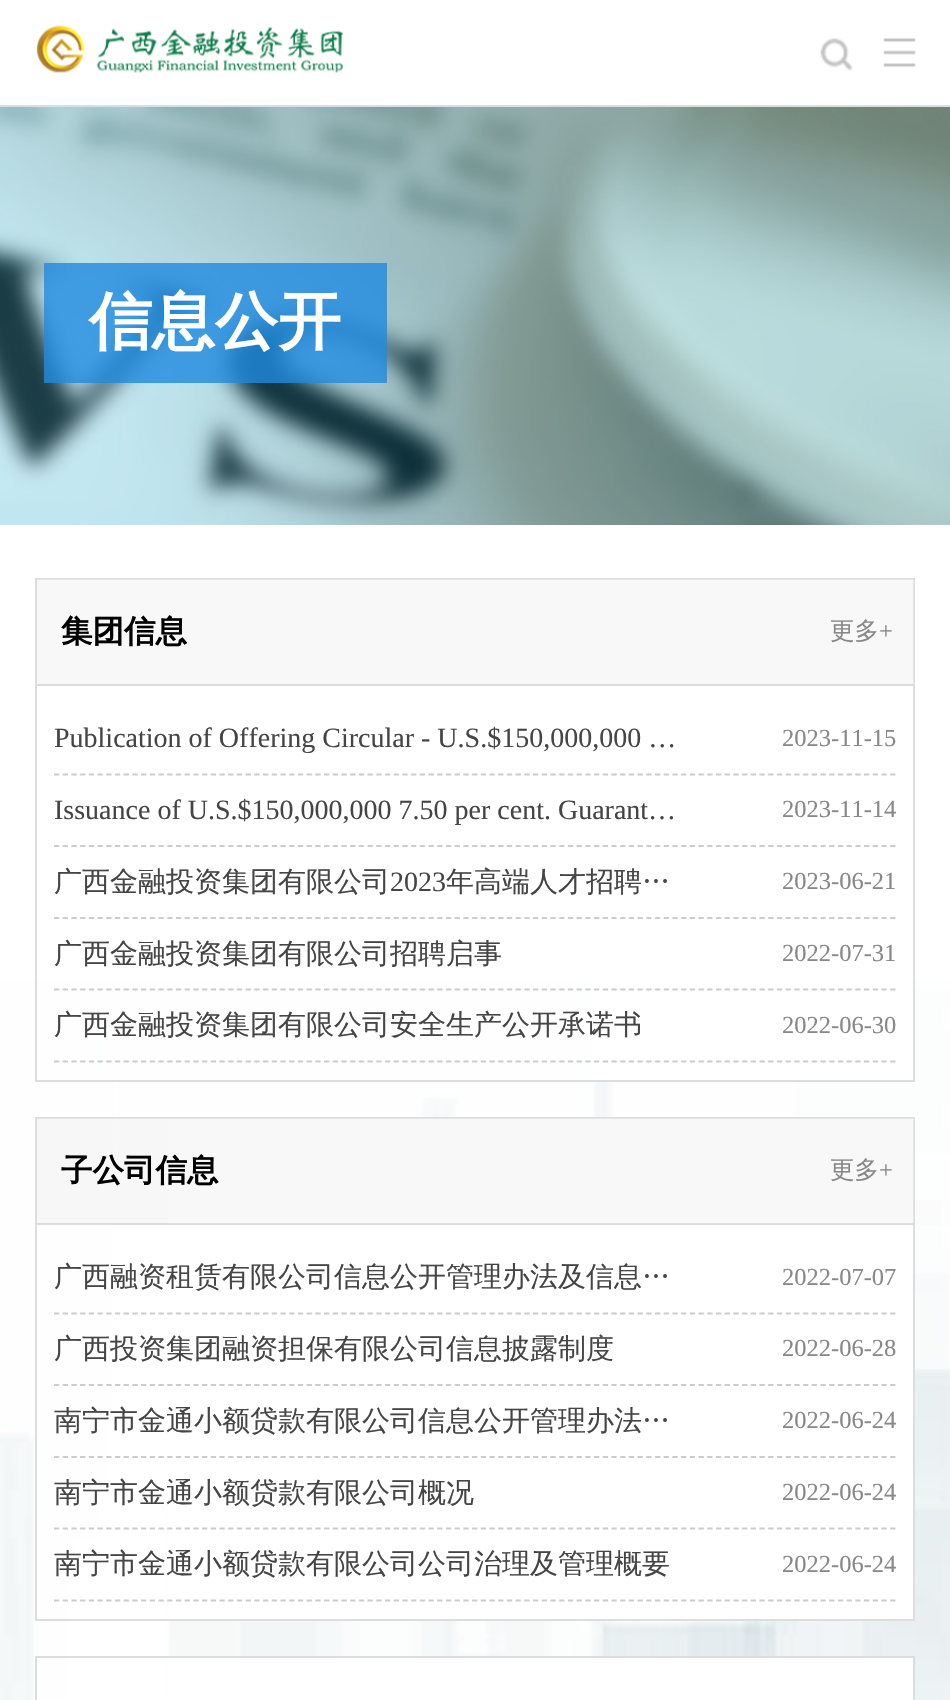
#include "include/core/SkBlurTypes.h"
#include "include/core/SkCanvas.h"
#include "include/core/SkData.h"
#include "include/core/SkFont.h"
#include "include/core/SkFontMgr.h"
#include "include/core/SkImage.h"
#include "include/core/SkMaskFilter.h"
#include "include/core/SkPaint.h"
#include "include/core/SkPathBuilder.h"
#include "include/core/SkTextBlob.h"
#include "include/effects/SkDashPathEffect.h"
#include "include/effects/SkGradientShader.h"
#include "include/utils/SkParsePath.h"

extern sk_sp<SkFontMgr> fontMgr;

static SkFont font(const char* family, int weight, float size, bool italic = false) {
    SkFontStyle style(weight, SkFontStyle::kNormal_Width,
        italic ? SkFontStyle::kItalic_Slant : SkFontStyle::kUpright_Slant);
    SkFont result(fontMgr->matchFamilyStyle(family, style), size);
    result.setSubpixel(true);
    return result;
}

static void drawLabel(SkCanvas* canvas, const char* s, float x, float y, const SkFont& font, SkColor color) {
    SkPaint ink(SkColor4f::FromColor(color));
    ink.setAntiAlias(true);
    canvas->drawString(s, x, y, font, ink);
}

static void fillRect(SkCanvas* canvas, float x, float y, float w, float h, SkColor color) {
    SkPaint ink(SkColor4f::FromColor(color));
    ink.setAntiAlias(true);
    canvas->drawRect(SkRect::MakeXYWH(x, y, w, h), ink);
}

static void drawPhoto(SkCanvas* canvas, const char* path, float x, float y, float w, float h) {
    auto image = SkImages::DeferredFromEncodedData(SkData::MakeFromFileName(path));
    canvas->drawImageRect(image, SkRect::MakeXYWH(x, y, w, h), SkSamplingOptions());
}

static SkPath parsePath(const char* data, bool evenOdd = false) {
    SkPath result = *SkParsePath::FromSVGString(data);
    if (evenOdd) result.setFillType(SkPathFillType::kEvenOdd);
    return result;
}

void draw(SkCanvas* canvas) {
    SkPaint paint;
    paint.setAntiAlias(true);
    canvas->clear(0xFFFFFFFF);
    fillRect(canvas, 0, 105, 950, 2, 0xFFDDDDDD);
    drawPhoto(canvas, "assets/img1.png", 37, 25, 306, 48);
    drawPhoto(canvas, "assets/img2.png", 820, 38, 33, 33);
    drawPhoto(canvas, "assets/img3.png", 883, 38, 33, 29);
    drawPhoto(canvas, "assets/img4.png", 0, 107, 950, 418);
    fillRect(canvas, 44, 263, 343, 120, 0xCC1E89E0);
    SkFont font1 = font("WenQuanYi Zen Hei", 700, 63);
    drawLabel(canvas, "信息公开", 89, 343, font1, 0xFFFFFFFF);
    drawPhoto(canvas, "assets/img5.png", 0, 979, 950, 721);
    fillRect(canvas, 591, 979, 322, 101, 0xFFFFFFFF);
    paint.setStroke(true);
    paint.setStrokeWidth(2);
    paint.setColor(0xFFDDDDDD);
    canvas->drawRect(SkRect::MakeXYWH(36, 579, 878, 502), paint);
    fillRect(canvas, 37, 579, 877, 105, 0x70EEEEEE);
    fillRect(canvas, 37, 684, 877, 2, 0xFFDDDDDD);
    SkFont font2 = font("WenQuanYi Zen Hei", 700, 31.5f);
    drawLabel(canvas, "集团信息", 61, 642, font2, 0xFF000000);
    SkFont font3 = font("WenQuanYi Zen Hei", 500, 24.5f);
    drawLabel(canvas, "更多", 830, 639, font3, 0xFF888888);
    SkFont font4 = font("Liberation Serif", 400, 24.5f);
    drawLabel(canvas, "+", 879, 639, font4, 0xFF888888);
    paint.setStrokeWidth(1.8f);
    paint.setColor(0xFFCCCCCC);
    paint.setPathEffect(SkDashPathEffect::Make({{5.25f, 3.46f}}, 0));
    canvas->drawPath(parsePath("M54 774.5H896"), paint);
    paint.setPathEffect(nullptr);
    SkFont font5 = font("Liberation Serif", 400, 28);
    drawLabel(canvas, "Publication of Offering Circular - U.S.$150,000,000 …", 54, 747, font5, 0xFF454545);
    drawLabel(canvas, "2023-11-15", 782, 746, font4, 0xFF888888);
    paint.setPathEffect(SkDashPathEffect::Make({{5.25f, 3.46f}}, 0));
    canvas->drawPath(parsePath("M54 846H896"), paint);
    paint.setPathEffect(nullptr);
    drawLabel(canvas, "Issuance of U.S.$150,000,000 7.50 per cent. Guarant…", 54, 819, font5, 0xFF454545);
    drawLabel(canvas, "2023-11-14", 782, 817, font4, 0xFF888888);
    paint.setPathEffect(SkDashPathEffect::Make({{5.25f, 3.46f}}, 0));
    canvas->drawPath(parsePath("M54 918H896"), paint);
    paint.setPathEffect(nullptr);
    SkFont font6 = font("WenQuanYi Zen Hei", 500, 28);
    drawLabel(canvas, "广西金融投资集团有限公司", 54, 891, font6, 0xFF454545);
    drawLabel(canvas, "2023", 390, 891, font5, 0xFF454545);
    drawLabel(canvas, "年高端人才招聘…", 446, 891, font6, 0xFF454545);
    drawLabel(canvas, "2023-06-21", 782, 889, font4, 0xFF888888);
    paint.setPathEffect(SkDashPathEffect::Make({{5.25f, 3.46f}}, 0));
    canvas->drawPath(parsePath("M54 989.5H896"), paint);
    paint.setPathEffect(nullptr);
    drawLabel(canvas, "广西金融投资集团有限公司招聘启事", 54, 963, font6, 0xFF454545);
    drawLabel(canvas, "2022-07-31", 782, 961, font4, 0xFF888888);
    paint.setPathEffect(SkDashPathEffect::Make({{5.25f, 3.46f}}, 0));
    canvas->drawPath(parsePath("M54 1061.5H896"), paint);
    paint.setPathEffect(nullptr);
    drawLabel(canvas, "广西金融投资集团有限公司安全生产公开承诺书", 54, 1034, font6, 0xFF454545);
    drawLabel(canvas, "2022-06-30", 782, 1033, font4, 0xFF888888);
    fillRect(canvas, 168, 1119, 745, 500, 0xFFFFFFFF);
    paint.setStrokeWidth(2);
    paint.setColor(0xFFDDDDDD);
    canvas->drawRect(SkRect::MakeXYWH(36, 1118, 878, 502), paint);
    fillRect(canvas, 37, 1118, 877, 105, 0x70EEEEEE);
    fillRect(canvas, 37, 1223, 877, 2, 0xFFDDDDDD);
    drawLabel(canvas, "子公司信息", 61, 1181, font2, 0xFF000000);
    drawLabel(canvas, "更多", 830, 1178, font3, 0xFF888888);
    drawLabel(canvas, "+", 879, 1178, font4, 0xFF888888);
    paint.setStrokeWidth(1.8f);
    paint.setColor(0xFFCCCCCC);
    paint.setPathEffect(SkDashPathEffect::Make({{5.25f, 3.46f}}, 0));
    canvas->drawPath(parsePath("M54 1313.5H896"), paint);
    paint.setPathEffect(nullptr);
    drawLabel(canvas, "广西融资租赁有限公司信息公开管理办法及信息…", 54, 1286, font6, 0xFF454545);
    drawLabel(canvas, "2022-07-07", 782, 1285, font4, 0xFF888888);
    paint.setPathEffect(SkDashPathEffect::Make({{5.25f, 3.46f}}, 0));
    canvas->drawPath(parsePath("M54 1385H896"), paint);
    paint.setPathEffect(nullptr);
    drawLabel(canvas, "广西投资集团融资担保有限公司信息披露制度", 54, 1358, font6, 0xFF454545);
    drawLabel(canvas, "2022-06-28", 782, 1356, font4, 0xFF888888);
    paint.setPathEffect(SkDashPathEffect::Make({{5.25f, 3.46f}}, 0));
    canvas->drawPath(parsePath("M54 1457H896"), paint);
    paint.setPathEffect(nullptr);
    drawLabel(canvas, "南宁市金通小额贷款有限公司信息公开管理办法…", 54, 1430, font6, 0xFF454545);
    drawLabel(canvas, "2022-06-24", 782, 1428, font4, 0xFF888888);
    paint.setPathEffect(SkDashPathEffect::Make({{5.25f, 3.46f}}, 0));
    canvas->drawPath(parsePath("M54 1528.5H896"), paint);
    paint.setPathEffect(nullptr);
    drawLabel(canvas, "南宁市金通小额贷款有限公司概况", 54, 1502, font6, 0xFF454545);
    drawLabel(canvas, "2022-06-24", 782, 1500, font4, 0xFF888888);
    paint.setPathEffect(SkDashPathEffect::Make({{5.25f, 3.46f}}, 0));
    canvas->drawPath(parsePath("M54 1600.5H896"), paint);
    paint.setPathEffect(nullptr);
    drawLabel(canvas, "南宁市金通小额贷款有限公司公司治理及管理概要", 54, 1573, font6, 0xFF454545);
    drawLabel(canvas, "2022-06-24", 782, 1572, font4, 0xFF888888);
    fillRect(canvas, 168, 1658, 745, 42, 0xFFFFFFFF);
    paint.setStrokeWidth(2);
    paint.setColor(0xFFDDDDDD);
    canvas->drawRect(SkRect::MakeXYWH(36, 1657, 878, 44), paint);
}
